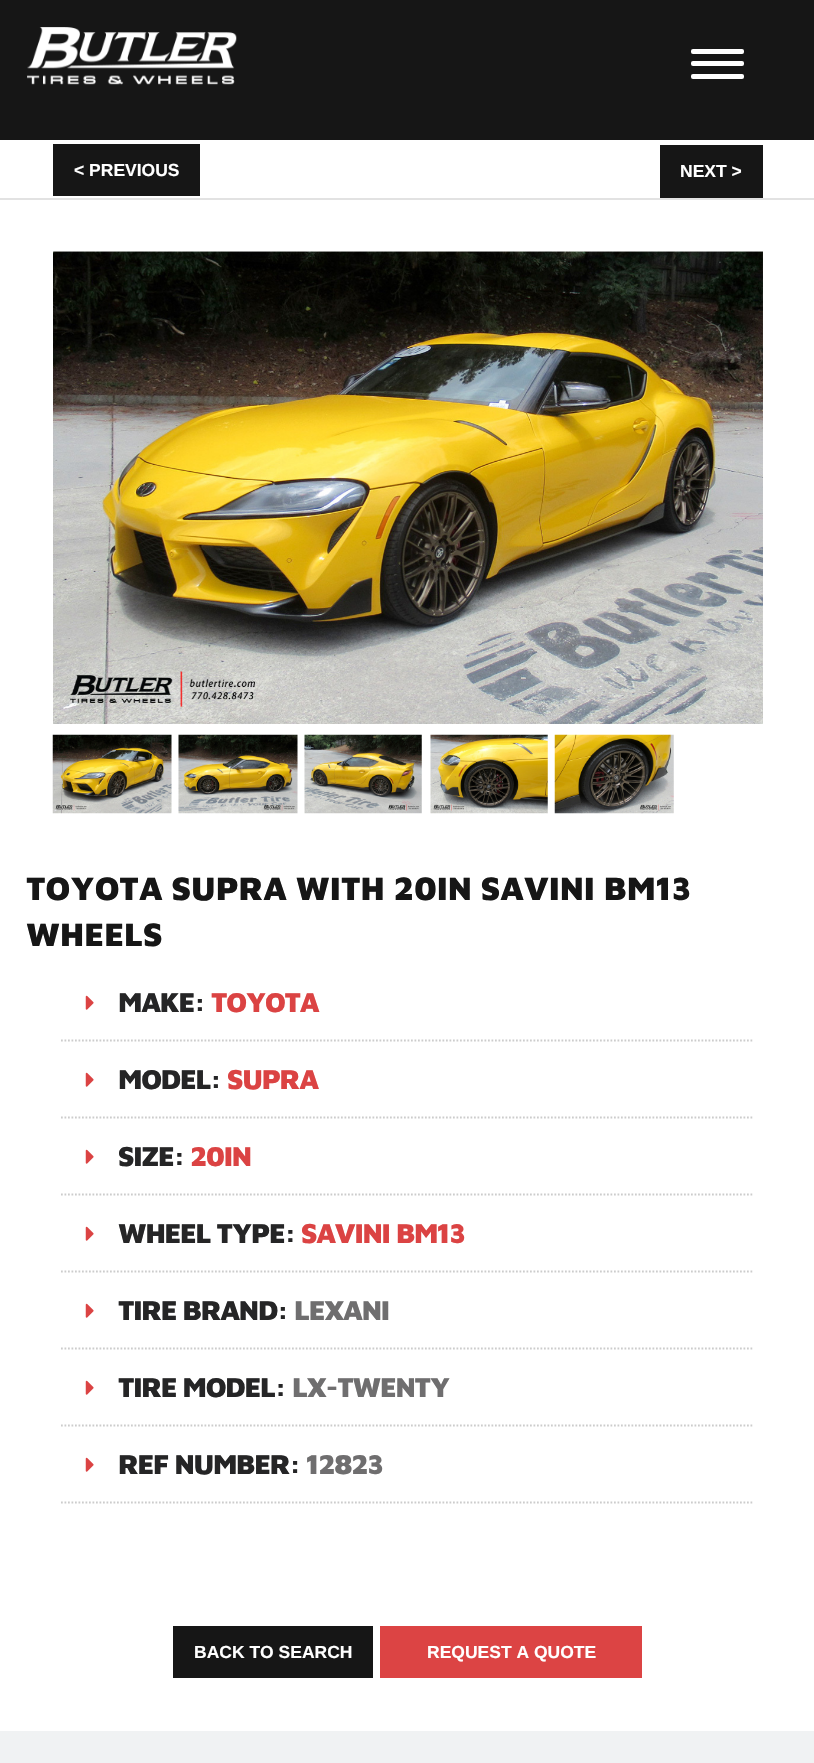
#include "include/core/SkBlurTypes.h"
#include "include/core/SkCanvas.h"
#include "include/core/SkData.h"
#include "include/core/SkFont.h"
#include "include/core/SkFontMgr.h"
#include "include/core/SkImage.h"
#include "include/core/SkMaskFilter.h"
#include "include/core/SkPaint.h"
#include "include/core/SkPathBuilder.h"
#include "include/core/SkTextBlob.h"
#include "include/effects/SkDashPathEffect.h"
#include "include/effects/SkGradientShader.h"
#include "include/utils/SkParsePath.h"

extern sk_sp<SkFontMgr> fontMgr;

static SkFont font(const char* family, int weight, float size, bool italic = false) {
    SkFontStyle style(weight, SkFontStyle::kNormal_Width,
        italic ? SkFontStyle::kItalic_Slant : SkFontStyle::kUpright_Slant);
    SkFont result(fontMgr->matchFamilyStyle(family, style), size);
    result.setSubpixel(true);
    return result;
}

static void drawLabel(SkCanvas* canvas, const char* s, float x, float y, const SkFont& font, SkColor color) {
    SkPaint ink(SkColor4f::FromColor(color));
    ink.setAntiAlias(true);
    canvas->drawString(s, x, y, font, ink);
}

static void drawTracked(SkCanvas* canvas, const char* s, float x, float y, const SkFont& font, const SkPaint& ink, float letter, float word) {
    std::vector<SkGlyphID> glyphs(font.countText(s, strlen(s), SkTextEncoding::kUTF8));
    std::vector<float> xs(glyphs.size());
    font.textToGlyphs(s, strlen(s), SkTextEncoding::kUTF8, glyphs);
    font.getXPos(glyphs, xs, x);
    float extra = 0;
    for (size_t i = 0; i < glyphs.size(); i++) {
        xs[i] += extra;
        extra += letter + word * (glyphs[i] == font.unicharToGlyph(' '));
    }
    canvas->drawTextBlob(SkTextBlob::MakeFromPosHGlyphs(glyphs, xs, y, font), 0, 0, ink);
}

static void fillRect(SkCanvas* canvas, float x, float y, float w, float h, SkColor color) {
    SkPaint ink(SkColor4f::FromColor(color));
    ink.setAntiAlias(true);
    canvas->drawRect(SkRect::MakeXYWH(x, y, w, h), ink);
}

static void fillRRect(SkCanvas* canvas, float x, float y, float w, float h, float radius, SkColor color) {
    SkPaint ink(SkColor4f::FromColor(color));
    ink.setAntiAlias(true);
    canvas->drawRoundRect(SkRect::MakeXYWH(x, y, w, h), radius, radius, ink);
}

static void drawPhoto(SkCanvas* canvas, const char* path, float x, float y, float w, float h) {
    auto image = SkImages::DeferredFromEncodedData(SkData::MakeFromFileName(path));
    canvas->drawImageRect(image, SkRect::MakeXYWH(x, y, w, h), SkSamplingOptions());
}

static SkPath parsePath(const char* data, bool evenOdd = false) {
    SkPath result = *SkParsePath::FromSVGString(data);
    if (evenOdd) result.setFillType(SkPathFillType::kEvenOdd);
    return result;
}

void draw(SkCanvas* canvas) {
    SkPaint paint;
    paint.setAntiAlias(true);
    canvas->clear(0xFFFFFFFF);
    fillRect(canvas, 0, 0, 814, 140, 0xFF161616);
    drawPhoto(canvas, "assets/img1.png", 27, 27, 210, 58);
    fillRRect(canvas, 691, 49, 53, 5, 2, 0xFFFFFFFF);
    fillRRect(canvas, 691, 61, 53, 5, 2, 0xFFFFFFFF);
    fillRRect(canvas, 691, 74, 53, 5, 2, 0xFFFFFFFF);
    fillRect(canvas, 0, 198, 814, 2, 0xFFE2E2E2);
    fillRect(canvas, 53, 144, 147, 52, 0xFF161616);
    SkFont font1 = font("Liberation Sans", 700, 17.5f);
    drawLabel(canvas, "< PREVIOUS", 74, 176, font1, 0xFFFFFFFF);
    fillRect(canvas, 660, 145, 103, 53, 0xFF161616);
    drawLabel(canvas, "NEXT >", 680, 177, font1, 0xFFFFFFFF);
    drawPhoto(canvas, "assets/img2.png", 53, 251, 710, 473);
    drawPhoto(canvas, "assets/img3.png", 52, 734, 120, 80);
    drawPhoto(canvas, "assets/img4.png", 178, 734, 120, 80);
    drawPhoto(canvas, "assets/img5.png", 304, 734, 118, 80);
    drawPhoto(canvas, "assets/img6.png", 430, 734, 118, 80);
    drawPhoto(canvas, "assets/img7.png", 554, 734, 120, 80);
    SkFont font2 = font("Maven Pro", 900, 33.25f);
    drawLabel(canvas, "TOYOTA SUPRA WITH 20IN SAVINI BM13", 26, 900, font2, 0xFF161616);
    drawLabel(canvas, "WHEELS", 26, 946, font2, 0xFF161616);
    paint.setStroke(true);
    paint.setStrokeWidth(1.8f);
    paint.setColor(0xFFCCCCCC);
    paint.setPathEffect(SkDashPathEffect::Make({{1.75f, 1.75f}}, 0));
    canvas->drawPath(parsePath("M61 1040.5H754"), paint);
    paint.setPathEffect(nullptr);
    drawPhoto(canvas, "assets/img8.png", 85, 995, 9, 15);
    SkFont font3 = font("Maven Pro", 900, 28);
    paint.setStroke(false);
    paint.setColor(0xFF252526);
    drawTracked(canvas, "MAKE:", 118, 1012, font3, paint, -1.25f, 0);
    paint.setColor(0xFFDB4343);
    drawTracked(canvas, "TOYOTA", 211, 1012, font3, paint, -1.25f, 0);
    paint.setStroke(true);
    paint.setColor(0xFFCCCCCC);
    paint.setPathEffect(SkDashPathEffect::Make({{1.75f, 1.75f}}, 0));
    canvas->drawPath(parsePath("M61 1117.5H754"), paint);
    paint.setPathEffect(nullptr);
    drawPhoto(canvas, "assets/img8.png", 85, 1072, 9, 15);
    paint.setStroke(false);
    paint.setColor(0xFF252526);
    drawTracked(canvas, "MODEL:", 118, 1089, font3, paint, -1.25f, 0);
    paint.setColor(0xFFDB4343);
    drawTracked(canvas, "SUPRA", 227, 1089, font3, paint, -1.25f, 0);
    paint.setStroke(true);
    paint.setColor(0xFFCCCCCC);
    paint.setPathEffect(SkDashPathEffect::Make({{1.75f, 1.75f}}, 0));
    canvas->drawPath(parsePath("M61 1194.5H754"), paint);
    paint.setPathEffect(nullptr);
    drawPhoto(canvas, "assets/img8.png", 85, 1149, 9, 15);
    paint.setStroke(false);
    paint.setColor(0xFF252526);
    drawTracked(canvas, "SIZE:", 118, 1166, font3, paint, -1.25f, 0);
    paint.setColor(0xFFDB4343);
    drawTracked(canvas, "20IN", 190, 1166, font3, paint, -1.25f, 0);
    paint.setStroke(true);
    paint.setColor(0xFFCCCCCC);
    paint.setPathEffect(SkDashPathEffect::Make({{1.75f, 1.75f}}, 0));
    canvas->drawPath(parsePath("M61 1271.5H754"), paint);
    paint.setPathEffect(nullptr);
    drawPhoto(canvas, "assets/img8.png", 85, 1226, 9, 15);
    paint.setStroke(false);
    paint.setColor(0xFF252526);
    drawTracked(canvas, "WHEEL TYPE:", 118, 1243, font3, paint, -1.25f, 0);
    paint.setColor(0xFFDB4343);
    drawTracked(canvas, "SAVINI BM13", 301, 1243, font3, paint, -1.25f, 0);
    paint.setStroke(true);
    paint.setColor(0xFFCCCCCC);
    paint.setPathEffect(SkDashPathEffect::Make({{1.75f, 1.75f}}, 0));
    canvas->drawPath(parsePath("M61 1348.5H754"), paint);
    paint.setPathEffect(nullptr);
    drawPhoto(canvas, "assets/img8.png", 85, 1303, 9, 15);
    paint.setStroke(false);
    paint.setColor(0xFF252526);
    drawTracked(canvas, "TIRE BRAND:", 118, 1320, font3, paint, -1.25f, 0);
    paint.setColor(0xFF6F6E6F);
    drawTracked(canvas, "LEXANI", 294, 1320, font3, paint, -1.25f, 0);
    paint.setStroke(true);
    paint.setColor(0xFFCCCCCC);
    paint.setPathEffect(SkDashPathEffect::Make({{1.75f, 1.75f}}, 0));
    canvas->drawPath(parsePath("M61 1425.5H754"), paint);
    paint.setPathEffect(nullptr);
    drawPhoto(canvas, "assets/img8.png", 85, 1380, 9, 15);
    paint.setStroke(false);
    paint.setColor(0xFF252526);
    drawTracked(canvas, "TIRE MODEL:", 118, 1397, font3, paint, -1.25f, 0);
    paint.setColor(0xFF6F6E6F);
    drawTracked(canvas, "LX-TWENTY", 292, 1397, font3, paint, -1.25f, 0);
    paint.setStroke(true);
    paint.setColor(0xFFCCCCCC);
    paint.setPathEffect(SkDashPathEffect::Make({{1.75f, 1.75f}}, 0));
    canvas->drawPath(parsePath("M61 1502.5H754"), paint);
    paint.setPathEffect(nullptr);
    drawPhoto(canvas, "assets/img8.png", 85, 1457, 9, 15);
    paint.setStroke(false);
    paint.setColor(0xFF252526);
    drawTracked(canvas, "REF NUMBER:", 118, 1474, font3, paint, -1.25f, 0);
    paint.setColor(0xFF6F6E6F);
    drawTracked(canvas, "12823", 306, 1474, font3, paint, -1.25f, 0);
    fillRect(canvas, 173, 1626, 200, 52, 0xFF161616);
    drawLabel(canvas, "BACK TO SEARCH", 194, 1658, font1, 0xFFFFFFFF);
    fillRect(canvas, 380, 1626, 262, 52, 0xFFDC4444);
    drawLabel(canvas, "REQUEST A QUOTE", 427, 1658, font1, 0xFFFFFFFF);
    fillRect(canvas, 0, 1731, 814, 32, 0xFFF0F2F3);
}
